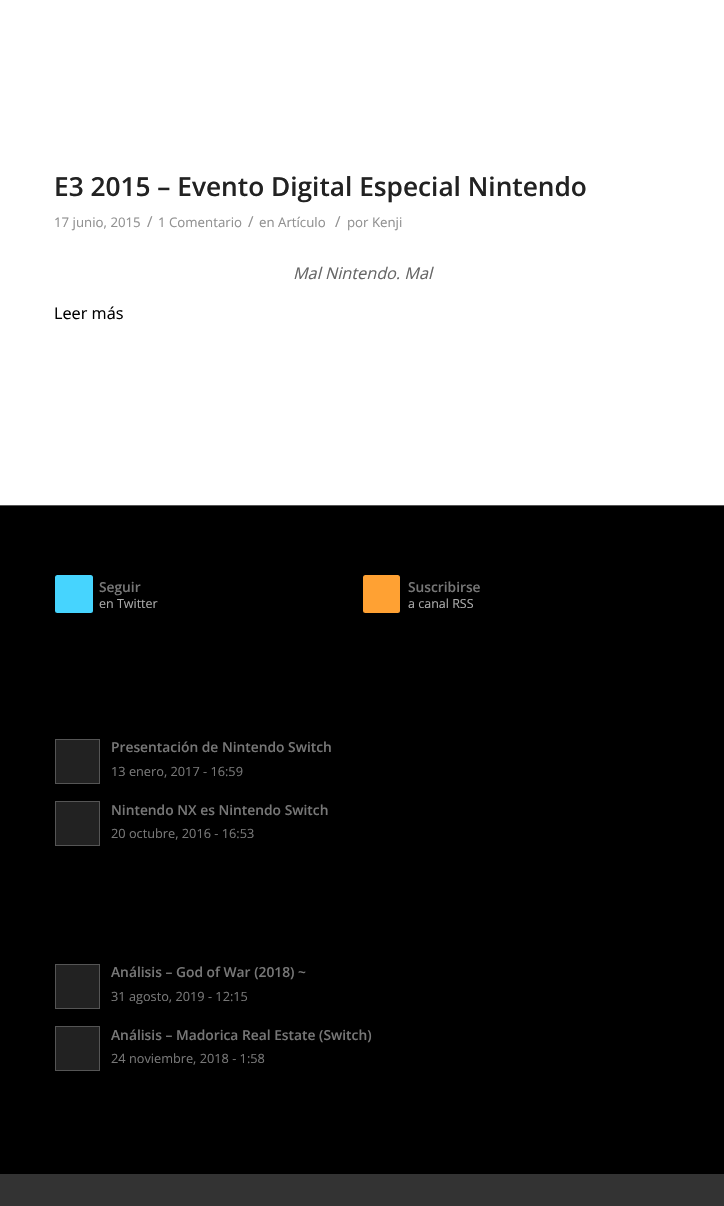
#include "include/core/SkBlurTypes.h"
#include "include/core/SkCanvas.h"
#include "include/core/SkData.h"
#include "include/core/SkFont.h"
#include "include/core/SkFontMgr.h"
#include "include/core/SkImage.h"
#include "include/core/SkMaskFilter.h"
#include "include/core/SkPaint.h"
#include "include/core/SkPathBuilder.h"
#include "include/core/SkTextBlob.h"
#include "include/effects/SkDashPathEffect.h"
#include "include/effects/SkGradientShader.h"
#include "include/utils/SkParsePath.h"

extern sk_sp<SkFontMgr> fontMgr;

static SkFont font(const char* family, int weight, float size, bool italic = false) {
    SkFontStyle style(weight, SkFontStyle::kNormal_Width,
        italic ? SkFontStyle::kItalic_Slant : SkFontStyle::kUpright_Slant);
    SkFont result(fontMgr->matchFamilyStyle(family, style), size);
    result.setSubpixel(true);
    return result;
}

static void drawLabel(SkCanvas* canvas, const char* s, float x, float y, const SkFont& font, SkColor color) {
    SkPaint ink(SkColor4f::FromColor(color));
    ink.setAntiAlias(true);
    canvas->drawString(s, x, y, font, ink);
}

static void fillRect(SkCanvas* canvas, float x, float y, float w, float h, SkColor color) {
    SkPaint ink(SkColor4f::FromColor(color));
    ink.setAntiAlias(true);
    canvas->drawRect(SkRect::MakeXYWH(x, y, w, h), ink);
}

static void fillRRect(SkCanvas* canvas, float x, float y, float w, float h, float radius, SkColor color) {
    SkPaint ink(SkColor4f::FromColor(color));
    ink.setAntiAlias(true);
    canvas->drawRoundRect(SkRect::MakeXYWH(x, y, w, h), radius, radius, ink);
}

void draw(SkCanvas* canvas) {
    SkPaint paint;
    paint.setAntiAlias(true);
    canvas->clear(0xFFFFFFFF);
    SkFont font1 = font("Open Sans", 600, 26.25f);
    drawLabel(canvas, "E3 2015 – Evento Digital Especial Nintendo", 54, 196, font1, 0xFF222222);
    SkFont font2 = font("Open Sans", 400, 13.25f);
    drawLabel(canvas, "17 junio, 2015", 54, 227, font2, 0xFF919191);
    SkFont font3 = font("Open Sans", 400, 15);
    drawLabel(canvas, "/", 147, 227, font3, 0xFF919191);
    drawLabel(canvas, "1 Comentario", 158, 227, font2, 0xFF919191);
    drawLabel(canvas, "/", 248, 227, font3, 0xFF919191);
    drawLabel(canvas, "en Artículo", 259, 227, font2, 0xFF919191);
    drawLabel(canvas, "/", 335, 227, font3, 0xFF919191);
    drawLabel(canvas, "por Kenji", 347, 227, font2, 0xFF919191);
    SkFont font4 = font("Open Sans", 400, 16.25f, true);
    drawLabel(canvas, "Mal Nintendo. Mal", 293, 279, font4, 0xFF666666);
    SkFont font5 = font("Open Sans", 400, 16.25f);
    drawLabel(canvas, "Leer más", 54, 319, font5, 0xFF000000);
    fillRect(canvas, 0, 506, 724, 668, 0xFF000000);
    fillRect(canvas, 0, 505, 724, 1, 0xFF555555);
    fillRRect(canvas, 55, 575, 38, 38, 2.5f, 0xFF46D4FE);
    SkFont font6 = font("Open Sans", 600, 13.75f);
    drawLabel(canvas, "Seguir", 99, 592, font6, 0xFF777777);
    SkFont font7 = font("Open Sans", 400, 12.5f);
    drawLabel(canvas, "en Twitter", 99, 608, font7, 0xFFAAAAAA);
    fillRRect(canvas, 363, 575, 37, 38, 2.5f, 0xFFFFA133);
    drawLabel(canvas, "Suscribirse", 408, 592, font6, 0xFF777777);
    drawLabel(canvas, "a canal RSS", 408, 608, font7, 0xFFAAAAAA);
    paint.setColor(0xFF222222);
    canvas->drawRect(SkRect::MakeXYWH(55.5f, 739.5f, 44, 44), paint);
    paint.setStroke(true);
    paint.setStrokeWidth(1);
    paint.setColor(0xFF555555);
    canvas->drawRect(SkRect::MakeXYWH(55.5f, 739.5f, 44, 44), paint);
    SkFont font8 = font("Open Sans", 600, 13.8f);
    drawLabel(canvas, "Presentación de Nintendo Switch", 111, 752, font8, 0xFF777777);
    SkFont font9 = font("Open Sans", 400, 12.75f);
    drawLabel(canvas, "13 enero, 2017 - 16:59", 111, 776, font9, 0xFF777777);
    paint.setStroke(false);
    paint.setColor(0xFF222222);
    canvas->drawRect(SkRect::MakeXYWH(55.5f, 801.5f, 44, 44), paint);
    paint.setStroke(true);
    paint.setColor(0xFF555555);
    canvas->drawRect(SkRect::MakeXYWH(55.5f, 801.5f, 44, 44), paint);
    drawLabel(canvas, "Nintendo NX es Nintendo Switch", 111, 815, font8, 0xFF777777);
    drawLabel(canvas, "20 octubre, 2016 - 16:53", 111, 838, font9, 0xFF777777);
    paint.setStroke(false);
    paint.setColor(0xFF222222);
    canvas->drawRect(SkRect::MakeXYWH(55.5f, 964.5f, 44, 44), paint);
    paint.setStroke(true);
    paint.setColor(0xFF555555);
    canvas->drawRect(SkRect::MakeXYWH(55.5f, 964.5f, 44, 44), paint);
    drawLabel(canvas, "Análisis – God of War (2018) ~", 111, 977, font8, 0xFF777777);
    drawLabel(canvas, "31 agosto, 2019 - 12:15", 111, 1001, font9, 0xFF777777);
    paint.setStroke(false);
    paint.setColor(0xFF222222);
    canvas->drawRect(SkRect::MakeXYWH(55.5f, 1026.5f, 44, 44), paint);
    paint.setStroke(true);
    paint.setColor(0xFF555555);
    canvas->drawRect(SkRect::MakeXYWH(55.5f, 1026.5f, 44, 44), paint);
    drawLabel(canvas, "Análisis – Madorica Real Estate (Switch)", 111, 1040, font8, 0xFF777777);
    drawLabel(canvas, "24 noviembre, 2018 - 1:58", 111, 1063, font9, 0xFF777777);
    fillRect(canvas, 0, 1174, 724, 32, 0xFF333333);
}
